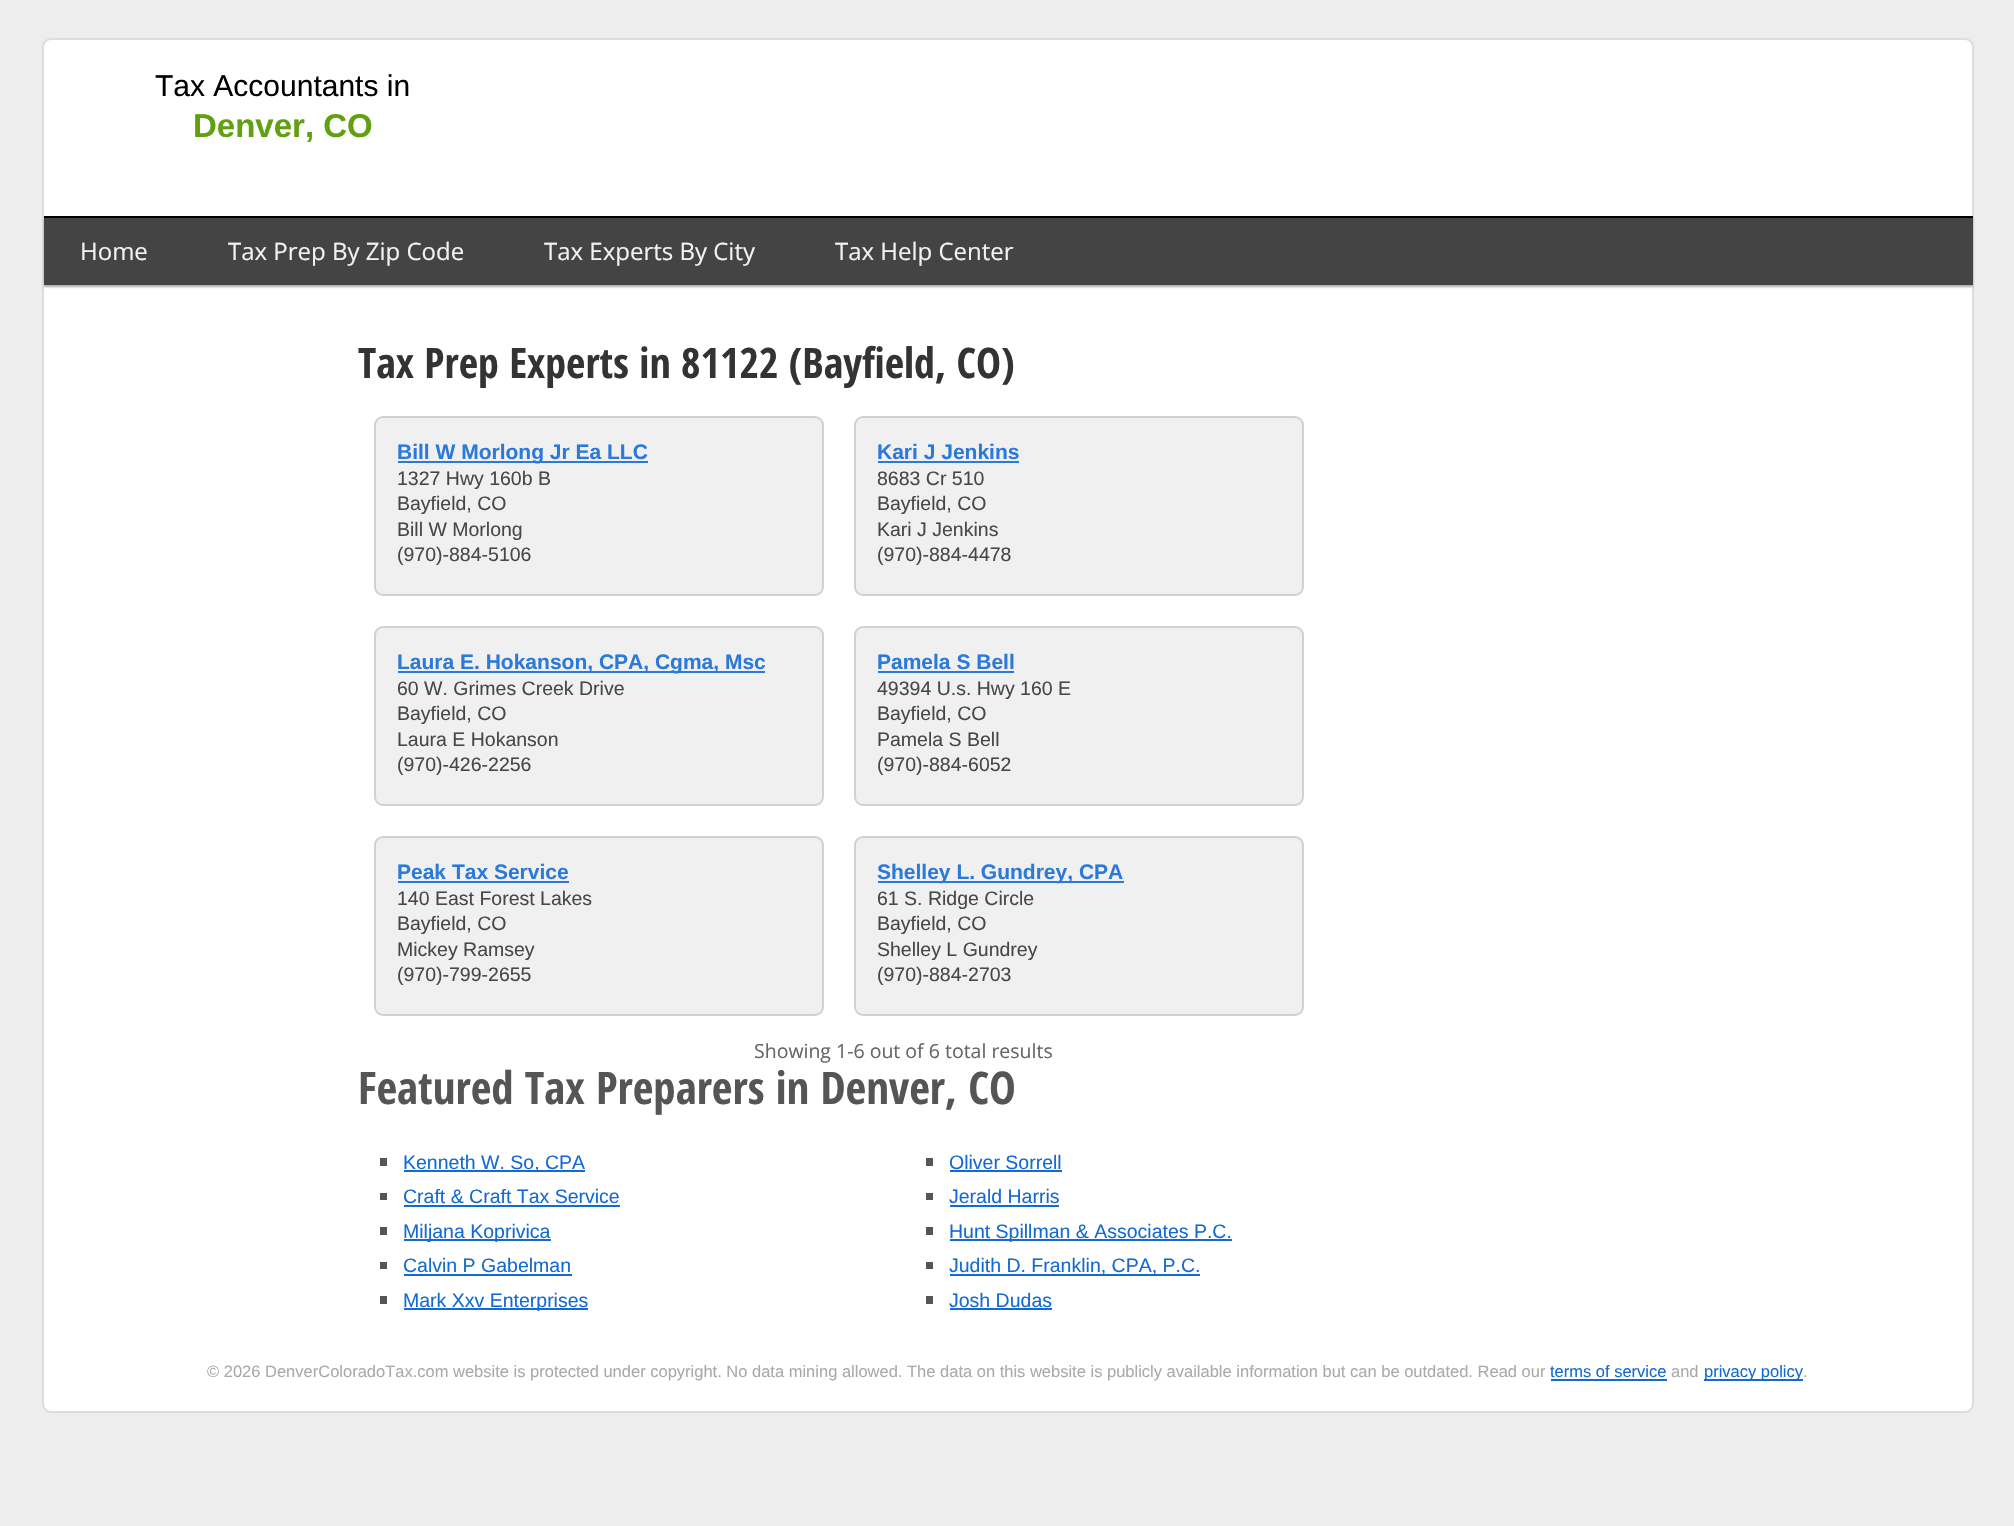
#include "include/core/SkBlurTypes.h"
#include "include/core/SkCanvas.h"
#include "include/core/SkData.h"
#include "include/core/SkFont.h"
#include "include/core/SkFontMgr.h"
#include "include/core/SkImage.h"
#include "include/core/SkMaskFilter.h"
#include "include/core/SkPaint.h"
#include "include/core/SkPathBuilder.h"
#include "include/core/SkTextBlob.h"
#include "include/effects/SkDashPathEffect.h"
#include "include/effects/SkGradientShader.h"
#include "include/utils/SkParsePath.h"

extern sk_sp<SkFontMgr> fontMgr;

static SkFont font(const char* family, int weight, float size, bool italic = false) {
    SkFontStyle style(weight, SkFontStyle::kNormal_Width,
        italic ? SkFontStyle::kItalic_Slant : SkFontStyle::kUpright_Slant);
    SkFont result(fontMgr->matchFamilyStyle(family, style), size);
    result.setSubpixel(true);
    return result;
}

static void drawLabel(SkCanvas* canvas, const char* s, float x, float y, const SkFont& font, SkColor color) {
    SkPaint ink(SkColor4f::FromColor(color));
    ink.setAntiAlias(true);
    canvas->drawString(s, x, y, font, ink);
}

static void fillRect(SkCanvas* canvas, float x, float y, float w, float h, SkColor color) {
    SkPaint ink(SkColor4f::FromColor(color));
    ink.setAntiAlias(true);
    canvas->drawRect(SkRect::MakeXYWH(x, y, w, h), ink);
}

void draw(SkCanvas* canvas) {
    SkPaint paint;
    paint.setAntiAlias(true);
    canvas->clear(0xFFEDEDED);
    paint.setColor(0xFFFFFFFF);
    canvas->drawRoundRect(SkRect::MakeXYWH(43, 39, 1930, 1373), 8, 8, paint);
    paint.setStroke(true);
    paint.setStrokeWidth(2);
    paint.setColor(0xFFDDDDDD);
    canvas->drawRoundRect(SkRect::MakeXYWH(43, 39, 1930, 1373), 8, 8, paint);
    SkFont font1 = font("Liberation Sans", 400, 30);
    drawLabel(canvas, "Tax Accountants in", 155, 96, font1, 0xFF000000);
    SkFont font2 = font("Liberation Sans", 700, 33);
    drawLabel(canvas, "Denver, CO", 193, 137, font2, 0xFF60A011);
    paint.setStroke(false);
    paint.setColor(0xFFAAAAAA);
    paint.setMaskFilter(SkMaskFilter::MakeBlur(kNormal_SkBlurStyle, 1));
    canvas->drawRect(SkRect::MakeXYWH(44, 218, 1929, 69), paint);
    paint.setMaskFilter(nullptr);
    fillRect(canvas, 44, 218, 1929, 67, 0xFF444444);
    fillRect(canvas, 44, 216, 1929, 2, 0xFF000000);
    SkFont font3 = font("Open Sans", 400, 24);
    drawLabel(canvas, "Home", 80, 260, font3, 0xFFF2F2F2);
    drawLabel(canvas, "Tax Prep By Zip Code", 228, 260, font3, 0xFFF2F2F2);
    drawLabel(canvas, "Tax Experts By City", 544, 260, font3, 0xFFF2F2F2);
    drawLabel(canvas, "Tax Help Center", 835, 260, font3, 0xFFF2F2F2);
    SkFont font4 = font("Open Sans Condensed", 700, 42);
    drawLabel(canvas, "Tax Prep Experts in 81122 (Bayfield, CO)", 358, 378, font4, 0xFF333333);
    paint.setColor(0xFFF0F0F0);
    canvas->drawRoundRect(SkRect::MakeXYWH(375, 417, 448, 178), 8, 8, paint);
    paint.setStroke(true);
    paint.setColor(0xFFD1D1D1);
    canvas->drawRoundRect(SkRect::MakeXYWH(375, 417, 448, 178), 8, 8, paint);
    fillRect(canvas, 398, 461, 250, 2, 0xFF2B79D9);
    SkFont font5 = font("Liberation Sans", 700, 21);
    drawLabel(canvas, "Bill W Morlong Jr Ea LLC", 397, 459, font5, 0xFF2B79D9);
    SkFont font6 = font("Liberation Sans", 400, 19.5f);
    drawLabel(canvas, "1327 Hwy 160b B", 397, 485, font6, 0xFF474747);
    drawLabel(canvas, "Bayfield, CO", 397, 510, font6, 0xFF474747);
    drawLabel(canvas, "Bill W Morlong", 397, 536, font6, 0xFF474747);
    drawLabel(canvas, "(970)-884-5106", 397, 561, font6, 0xFF474747);
    paint.setStroke(false);
    paint.setColor(0xFFF0F0F0);
    canvas->drawRoundRect(SkRect::MakeXYWH(855, 417, 448, 178), 8, 8, paint);
    paint.setStroke(true);
    paint.setColor(0xFFD1D1D1);
    canvas->drawRoundRect(SkRect::MakeXYWH(855, 417, 448, 178), 8, 8, paint);
    drawLabel(canvas, "Kari J Jenkins", 877, 459, font5, 0xFF2B79D9);
    fillRect(canvas, 878, 461, 141, 2, 0xFF2B79D9);
    drawLabel(canvas, "8683 Cr 510", 877, 485, font6, 0xFF474747);
    drawLabel(canvas, "Bayfield, CO", 877, 510, font6, 0xFF474747);
    drawLabel(canvas, "Kari J Jenkins", 877, 536, font6, 0xFF474747);
    drawLabel(canvas, "(970)-884-4478", 877, 561, font6, 0xFF474747);
    paint.setStroke(false);
    paint.setColor(0xFFF0F0F0);
    canvas->drawRoundRect(SkRect::MakeXYWH(375, 627, 448, 178), 8, 8, paint);
    paint.setStroke(true);
    paint.setColor(0xFFD1D1D1);
    canvas->drawRoundRect(SkRect::MakeXYWH(375, 627, 448, 178), 8, 8, paint);
    fillRect(canvas, 398, 671, 367, 2, 0xFF2B79D9);
    drawLabel(canvas, "Laura E. Hokanson, CPA, Cgma, Msc", 397, 669, font5, 0xFF2B79D9);
    drawLabel(canvas, "60 W. Grimes Creek Drive", 397, 695, font6, 0xFF474747);
    drawLabel(canvas, "Bayfield, CO", 397, 720, font6, 0xFF474747);
    drawLabel(canvas, "Laura E Hokanson", 397, 746, font6, 0xFF474747);
    drawLabel(canvas, "(970)-426-2256", 397, 771, font6, 0xFF474747);
    paint.setStroke(false);
    paint.setColor(0xFFF0F0F0);
    canvas->drawRoundRect(SkRect::MakeXYWH(855, 627, 448, 178), 8, 8, paint);
    paint.setStroke(true);
    paint.setColor(0xFFD1D1D1);
    canvas->drawRoundRect(SkRect::MakeXYWH(855, 627, 448, 178), 8, 8, paint);
    drawLabel(canvas, "Pamela S Bell", 877, 669, font5, 0xFF2B79D9);
    fillRect(canvas, 878, 671, 136, 2, 0xFF2B79D9);
    drawLabel(canvas, "49394 U.s. Hwy 160 E", 877, 695, font6, 0xFF474747);
    drawLabel(canvas, "Bayfield, CO", 877, 720, font6, 0xFF474747);
    drawLabel(canvas, "Pamela S Bell", 877, 746, font6, 0xFF474747);
    drawLabel(canvas, "(970)-884-6052", 877, 771, font6, 0xFF474747);
    paint.setStroke(false);
    paint.setColor(0xFFF0F0F0);
    canvas->drawRoundRect(SkRect::MakeXYWH(375, 837, 448, 178), 8, 8, paint);
    paint.setStroke(true);
    paint.setColor(0xFFD1D1D1);
    canvas->drawRoundRect(SkRect::MakeXYWH(375, 837, 448, 178), 8, 8, paint);
    drawLabel(canvas, "Peak Tax Service", 397, 879, font5, 0xFF2B79D9);
    fillRect(canvas, 398, 881, 171, 2, 0xFF2B79D9);
    drawLabel(canvas, "140 East Forest Lakes", 397, 905, font6, 0xFF474747);
    drawLabel(canvas, "Bayfield, CO", 397, 930, font6, 0xFF474747);
    drawLabel(canvas, "Mickey Ramsey", 397, 956, font6, 0xFF474747);
    drawLabel(canvas, "(970)-799-2655", 397, 981, font6, 0xFF474747);
    paint.setStroke(false);
    paint.setColor(0xFFF0F0F0);
    canvas->drawRoundRect(SkRect::MakeXYWH(855, 837, 448, 178), 8, 8, paint);
    paint.setStroke(true);
    paint.setColor(0xFFD1D1D1);
    canvas->drawRoundRect(SkRect::MakeXYWH(855, 837, 448, 178), 8, 8, paint);
    fillRect(canvas, 878, 881, 246, 2, 0xFF2B79D9);
    drawLabel(canvas, "Shelley L. Gundrey, CPA", 877, 879, font5, 0xFF2B79D9);
    drawLabel(canvas, "61 S. Ridge Circle", 877, 905, font6, 0xFF474747);
    drawLabel(canvas, "Bayfield, CO", 877, 930, font6, 0xFF474747);
    drawLabel(canvas, "Shelley L Gundrey", 877, 956, font6, 0xFF474747);
    drawLabel(canvas, "(970)-884-2703", 877, 981, font6, 0xFF474747);
    SkFont font7 = font("Open Sans", 400, 19.5f);
    drawLabel(canvas, "Showing 1-6 out of 6 total results", 754, 1058, font7, 0xFF666666);
    SkFont font8 = font("Open Sans Condensed", 700, 45);
    drawLabel(canvas, "Featured Tax Preparers in Denver, CO", 358, 1104, font8, 0xFF555555);
    fillRect(canvas, 380, 1158, 7, 8, 0xFF555555);
    fillRect(canvas, 404, 1170, 181, 2, 0xFF136AD5);
    drawLabel(canvas, "Kenneth W. So, CPA", 403, 1169, font6, 0xFF136AD5);
    fillRect(canvas, 380, 1193, 7, 7, 0xFF555555);
    drawLabel(canvas, "Craft & Craft Tax Service", 403, 1203, font6, 0xFF136AD5);
    fillRect(canvas, 404, 1205, 216, 2, 0xFF136AD5);
    fillRect(canvas, 380, 1227, 7, 8, 0xFF555555);
    fillRect(canvas, 404, 1239, 147, 2, 0xFF136AD5);
    drawLabel(canvas, "Miljana Koprivica", 403, 1238, font6, 0xFF136AD5);
    fillRect(canvas, 380, 1262, 7, 7, 0xFF555555);
    drawLabel(canvas, "Calvin P Gabelman", 403, 1272, font6, 0xFF136AD5);
    fillRect(canvas, 404, 1274, 168, 2, 0xFF136AD5);
    fillRect(canvas, 380, 1296, 7, 8, 0xFF555555);
    fillRect(canvas, 404, 1308, 184, 2, 0xFF136AD5);
    drawLabel(canvas, "Mark Xxv Enterprises", 403, 1307, font6, 0xFF136AD5);
    fillRect(canvas, 926, 1158, 7, 8, 0xFF555555);
    drawLabel(canvas, "Oliver Sorrell", 949, 1169, font6, 0xFF136AD5);
    fillRect(canvas, 950, 1170, 112, 2, 0xFF136AD5);
    fillRect(canvas, 926, 1193, 7, 7, 0xFF555555);
    drawLabel(canvas, "Jerald Harris", 949, 1203, font6, 0xFF136AD5);
    fillRect(canvas, 950, 1205, 109, 2, 0xFF136AD5);
    fillRect(canvas, 926, 1227, 7, 8, 0xFF555555);
    fillRect(canvas, 950, 1239, 282, 2, 0xFF136AD5);
    drawLabel(canvas, "Hunt Spillman & Associates P.C.", 949, 1238, font6, 0xFF136AD5);
    fillRect(canvas, 926, 1262, 7, 7, 0xFF555555);
    fillRect(canvas, 950, 1274, 250, 2, 0xFF136AD5);
    drawLabel(canvas, "Judith D. Franklin, CPA, P.C.", 949, 1272, font6, 0xFF136AD5);
    fillRect(canvas, 926, 1296, 7, 8, 0xFF555555);
    drawLabel(canvas, "Josh Dudas", 949, 1307, font6, 0xFF136AD5);
    fillRect(canvas, 950, 1308, 102, 2, 0xFF136AD5);
    SkFont font9 = font("Liberation Sans", 400, 16.5f);
    drawLabel(canvas, "© 2026 DenverColoradoTax.com website is protected under copyright. No data mining allowed. The data on this website is publicly available information but can be outdated. Read our", 207, 1377, font9, 0xFFAAAAAA);
    drawLabel(canvas, "terms of service", 1550, 1377, font9, 0xFF136AD5);
    fillRect(canvas, 1551, 1379, 116, 2, 0xFF136AD5);
    drawLabel(canvas, "and", 1671, 1377, font9, 0xFFAAAAAA);
    fillRect(canvas, 1704, 1379, 99, 2, 0xFF136AD5);
    drawLabel(canvas, "privacy policy", 1704, 1377, font9, 0xFF136AD5);
    drawLabel(canvas, ".", 1803, 1377, font9, 0xFFAAAAAA);
}
